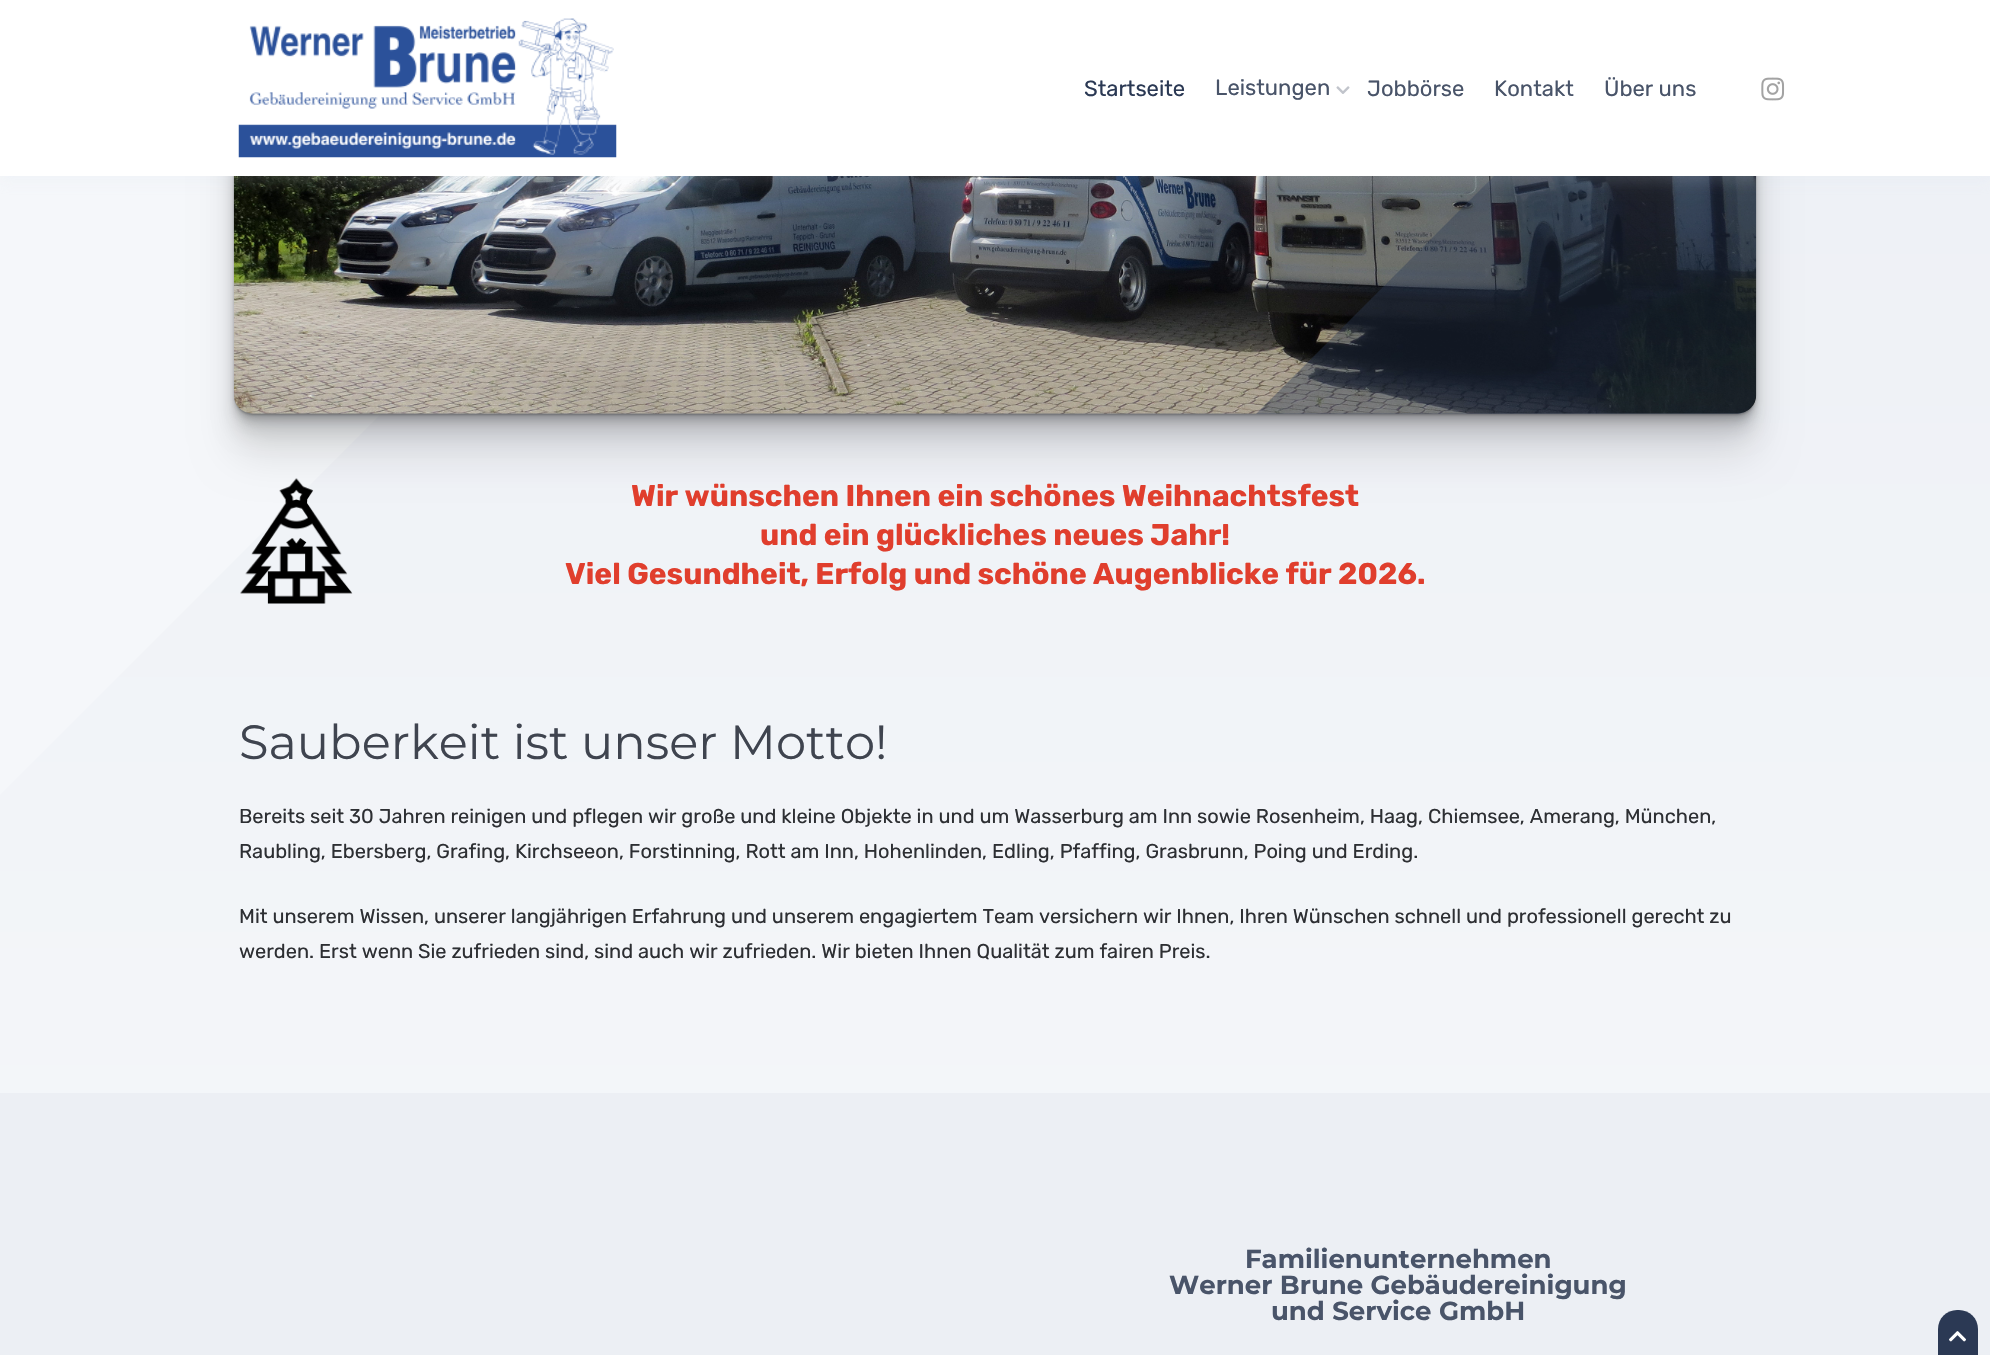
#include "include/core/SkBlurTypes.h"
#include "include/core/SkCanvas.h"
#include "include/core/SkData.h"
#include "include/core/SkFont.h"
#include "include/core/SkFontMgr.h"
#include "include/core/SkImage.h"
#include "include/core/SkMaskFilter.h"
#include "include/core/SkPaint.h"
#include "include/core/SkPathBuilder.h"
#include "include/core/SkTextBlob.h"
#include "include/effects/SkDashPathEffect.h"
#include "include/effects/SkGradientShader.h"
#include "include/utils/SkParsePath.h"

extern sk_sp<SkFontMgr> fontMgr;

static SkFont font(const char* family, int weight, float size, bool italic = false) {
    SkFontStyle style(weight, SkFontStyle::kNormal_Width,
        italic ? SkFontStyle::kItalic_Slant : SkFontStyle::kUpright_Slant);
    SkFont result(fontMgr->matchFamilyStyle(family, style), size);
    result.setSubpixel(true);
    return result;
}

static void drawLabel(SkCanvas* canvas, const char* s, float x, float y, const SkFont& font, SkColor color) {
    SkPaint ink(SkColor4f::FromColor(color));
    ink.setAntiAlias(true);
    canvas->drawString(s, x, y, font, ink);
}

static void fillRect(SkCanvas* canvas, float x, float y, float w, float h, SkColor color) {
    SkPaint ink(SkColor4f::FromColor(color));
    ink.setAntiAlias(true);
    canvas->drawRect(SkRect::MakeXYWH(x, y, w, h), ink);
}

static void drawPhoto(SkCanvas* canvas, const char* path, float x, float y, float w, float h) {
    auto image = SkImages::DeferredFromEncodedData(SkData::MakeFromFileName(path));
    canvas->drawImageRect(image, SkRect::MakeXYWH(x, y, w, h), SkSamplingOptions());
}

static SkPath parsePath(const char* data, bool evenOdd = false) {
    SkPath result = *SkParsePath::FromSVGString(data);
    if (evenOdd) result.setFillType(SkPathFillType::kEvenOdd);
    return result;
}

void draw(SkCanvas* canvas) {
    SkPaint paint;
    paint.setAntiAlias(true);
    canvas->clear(0xFFFFFFFF);
    {
        const SkColor colors[] = {0xFFEDF0F5, 0xFFF5F7FA};
        const float stops[] = {0, 1};
        const SkPoint ends[] = {{995, 0}, {995, 1355}};
        paint.setShader(SkGradientShader::MakeLinear(ends, colors, stops, 2, SkTileMode::kClamp));
        paint.setAlpha(255);
    }
    canvas->drawRect(SkRect::MakeXYWH(0, 176, 1990, 917), paint);
    paint.setShader(nullptr);
    paint.setColor(0xFFF5F7FA);
    canvas->drawPath(parsePath("M0 0H795L0 795Z"), paint);
    paint.setColor(0x1C000000);
    paint.setMaskFilter(SkMaskFilter::MakeBlur(kNormal_SkBlurStyle, 20));
    canvas->drawRoundRect(SkRect::MakeXYWH(234, -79, 1522, 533), 19, 19, paint);
    paint.setMaskFilter(nullptr);
    paint.setMaskFilter(SkMaskFilter::MakeBlur(kNormal_SkBlurStyle, 10));
    canvas->drawRoundRect(SkRect::MakeXYWH(234, -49, 1522, 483), 19, 19, paint);
    paint.setMaskFilter(nullptr);
    paint.setMaskFilter(SkMaskFilter::MakeBlur(kNormal_SkBlurStyle, 5));
    canvas->drawRoundRect(SkRect::MakeXYWH(234, -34, 1522, 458), 19, 19, paint);
    paint.setMaskFilter(nullptr);
    paint.setMaskFilter(SkMaskFilter::MakeBlur(kNormal_SkBlurStyle, 2.5f));
    canvas->drawRoundRect(SkRect::MakeXYWH(234, -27, 1522, 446), 19, 19, paint);
    paint.setMaskFilter(nullptr);
    paint.setMaskFilter(SkMaskFilter::MakeBlur(kNormal_SkBlurStyle, 1));
    canvas->drawRoundRect(SkRect::MakeXYWH(234, -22, 1522, 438), 19, 19, paint);
    paint.setMaskFilter(nullptr);
    paint.setMaskFilter(SkMaskFilter::MakeBlur(kNormal_SkBlurStyle, 0.5f));
    canvas->drawRoundRect(SkRect::MakeXYWH(234, -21, 1522, 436), 19, 19, paint);
    paint.setMaskFilter(nullptr);
    drawPhoto(canvas, "assets/img4.png", 233, 176, 1524, 238);
    paint.setColor(0x662B3954);
    canvas->drawPath(parsePath("M1256 414H1737C1747 414 1756 405 1756 395V-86Z"), paint);
    paint.setColor(0x26D8DEE9);
    paint.setMaskFilter(SkMaskFilter::MakeBlur(kNormal_SkBlurStyle, 6));
    canvas->drawRect(SkRect::MakeXYWH(0, 6, 1990, 177), paint);
    paint.setMaskFilter(nullptr);
    fillRect(canvas, 0, 0, 1990, 176, 0xFFFFFFFF);
    drawPhoto(canvas, "assets/img1.png", 238, 18, 379, 140);
    SkFont font1 = font("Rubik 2", 300, 22);
    drawLabel(canvas, "Startseite", 1084, 96, font1, 0xFF2B3954);
    drawLabel(canvas, "Leistungen", 1215, 95, font1, 0xFF495469);
    drawPhoto(canvas, "assets/img2.png", 1336, 86, 14, 8);
    drawLabel(canvas, "Jobbörse", 1367, 96, font1, 0xFF495469);
    drawLabel(canvas, "Kontakt", 1494, 96, font1, 0xFF495469);
    drawLabel(canvas, "Über uns", 1604, 96, font1, 0xFF495469);
    drawPhoto(canvas, "assets/img3.png", 1761, 77, 24, 24);
    drawPhoto(canvas, "assets/img5.png", 240, 478, 113, 126);
    SkFont font2 = font("Rubik", 300, 30);
    drawLabel(canvas, "Wir wünschen Ihnen ein schönes Weihnachtsfest", 631, 506, font2, 0xFFE03E2D);
    drawLabel(canvas, "und ein glückliches neues Jahr!", 760, 545, font2, 0xFFE03E2D);
    drawLabel(canvas, "Viel Gesundheit, Erfolg und schöne Augenblicke für 2026.", 565, 584, font2, 0xFFE03E2D);
    SkFont font3 = font("Montserrat", 100, 48);
    drawLabel(canvas, "Sauberkeit ist unser Motto!", 239, 759, font3, 0xFF3F444F);
    SkFont font4 = font("Rubik 2", 300, 20);
    drawLabel(canvas, "Bereits seit 30 Jahren reinigen und pflegen wir große und kleine Objekte in und um Wasserburg am Inn sowie Rosenheim, Haag, Chiemsee, Amerang, München,", 239, 823, font4, 0xFF2D2F33);
    drawLabel(canvas, "Raubling, Ebersberg, Grafing, Kirchseeon, Forstinning, Rott am Inn, Hohenlinden, Edling, Pfaffing, Grasbrunn, Poing und Erding.", 239, 858, font4, 0xFF2D2F33);
    drawLabel(canvas, "Mit unserem Wissen, unserer langjährigen Erfahrung und unserem engagiertem Team versichern wir Ihnen, Ihren Wünschen schnell und professionell gerecht zu", 239, 923, font4, 0xFF2D2F33);
    drawLabel(canvas, "werden. Erst wenn Sie zufrieden sind, sind auch wir zufrieden. Wir bieten Ihnen Qualität zum fairen Preis.", 239, 958, font4, 0xFF2D2F33);
    fillRect(canvas, 0, 1093, 1990, 262, 0xFFECEFF4);
    SkFont font5 = font("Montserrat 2", 100, 26);
    drawLabel(canvas, "Familienunternehmen", 1245, 1268, font5, 0xFF495469);
    drawLabel(canvas, "Werner Brune Gebäudereinigung", 1169, 1294, font5, 0xFF495469);
    drawLabel(canvas, "und Service GmbH", 1271, 1320, font5, 0xFF495469);
    paint.setColor(0xFF2B3954);
    canvas->drawPath(parsePath("M1957 1310H1959C1969.5 1310 1978 1318.5 1978 1329V1355H1938V1329C1938 1318.5 1946.5 1310 1957 1310Z"), paint);
    drawPhoto(canvas, "assets/img6.png", 1949, 1331, 17, 11);
}
